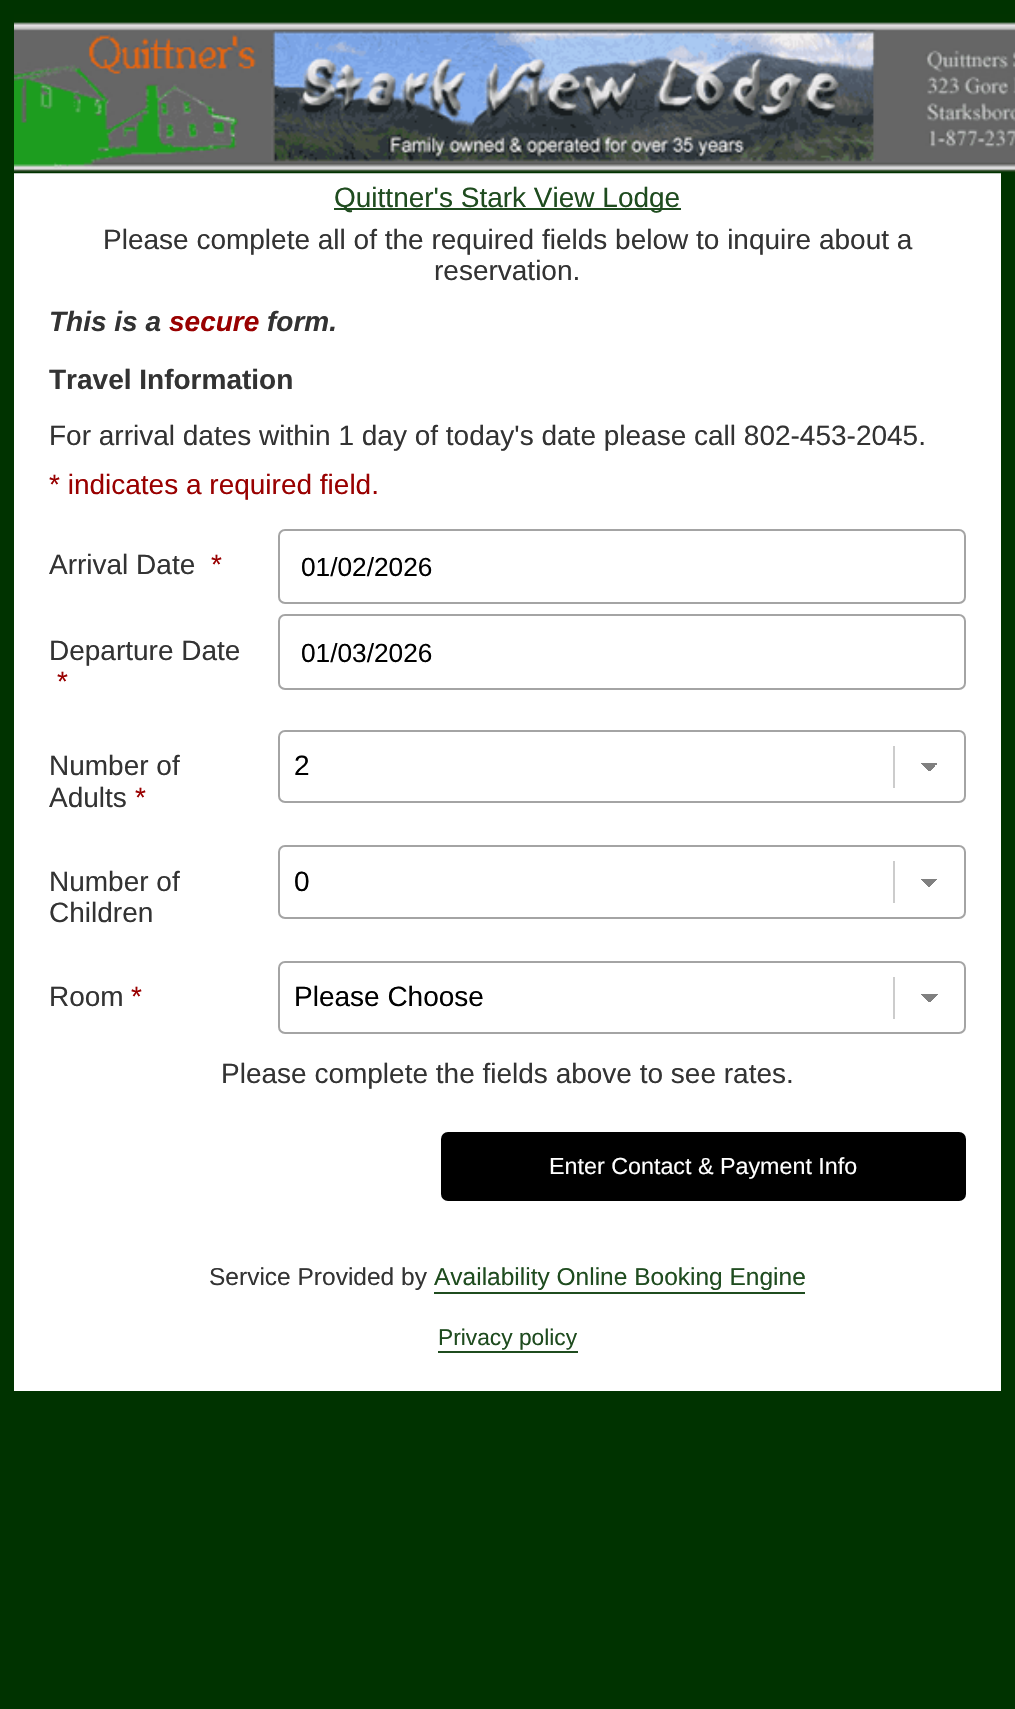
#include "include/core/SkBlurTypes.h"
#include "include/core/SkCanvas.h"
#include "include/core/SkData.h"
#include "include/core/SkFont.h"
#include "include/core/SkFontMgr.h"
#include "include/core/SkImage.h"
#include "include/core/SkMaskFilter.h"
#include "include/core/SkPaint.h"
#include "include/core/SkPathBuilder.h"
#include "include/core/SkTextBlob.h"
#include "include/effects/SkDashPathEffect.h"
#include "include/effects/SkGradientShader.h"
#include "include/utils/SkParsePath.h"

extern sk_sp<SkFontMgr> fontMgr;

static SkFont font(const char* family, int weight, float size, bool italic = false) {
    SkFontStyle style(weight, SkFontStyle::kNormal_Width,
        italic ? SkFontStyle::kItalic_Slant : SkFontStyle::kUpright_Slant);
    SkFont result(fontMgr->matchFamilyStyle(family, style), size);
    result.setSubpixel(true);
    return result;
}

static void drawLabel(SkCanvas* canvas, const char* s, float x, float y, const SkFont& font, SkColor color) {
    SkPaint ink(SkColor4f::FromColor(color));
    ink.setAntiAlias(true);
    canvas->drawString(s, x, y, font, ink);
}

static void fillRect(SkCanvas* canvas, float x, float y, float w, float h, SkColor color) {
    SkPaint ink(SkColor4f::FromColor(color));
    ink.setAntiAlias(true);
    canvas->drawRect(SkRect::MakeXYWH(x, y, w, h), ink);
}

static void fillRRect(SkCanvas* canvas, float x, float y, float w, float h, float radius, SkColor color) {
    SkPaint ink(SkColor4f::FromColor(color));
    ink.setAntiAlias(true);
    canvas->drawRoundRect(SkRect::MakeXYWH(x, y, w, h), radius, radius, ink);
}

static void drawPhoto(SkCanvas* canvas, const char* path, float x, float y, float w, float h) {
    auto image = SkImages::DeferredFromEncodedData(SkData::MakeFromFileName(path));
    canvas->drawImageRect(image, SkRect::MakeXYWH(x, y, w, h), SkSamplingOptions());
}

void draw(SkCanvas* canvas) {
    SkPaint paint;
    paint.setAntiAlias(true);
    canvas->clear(0xFF003300);
    fillRect(canvas, 14, 173, 987, 1218, 0xFFFFFFFF);
    drawPhoto(canvas, "assets/img1.png", 14, 14, 1001, 160);
    fillRect(canvas, 334, 208, 347, 2, 0xFF1F4C1F);
    SkFont font1 = font("Liberation Sans", 400, 28);
    drawLabel(canvas, "Quittner's Stark View Lodge", 334, 207, font1, 0xFF1F4C1F);
    drawLabel(canvas, "Please complete all of the required fields below to inquire about a", 103, 249, font1, 0xFF333333);
    drawLabel(canvas, "reservation.", 434, 280, font1, 0xFF333333);
    SkFont font2 = font("Liberation Sans", 700, 28, true);
    drawLabel(canvas, "This is a", 49, 331, font2, 0xFF333333);
    drawLabel(canvas, "secure", 169, 331, font2, 0xFF990000);
    drawLabel(canvas, "form.", 267, 331, font2, 0xFF333333);
    SkFont font3 = font("Liberation Sans", 700, 28);
    drawLabel(canvas, "Travel Information", 49, 389, font3, 0xFF333333);
    drawLabel(canvas, "For arrival dates within 1 day of today's date please call 802-453-2045.", 49, 445, font1, 0xFF333333);
    drawLabel(canvas, "* indicates a required field.", 49, 494, font1, 0xFF990000);
    drawLabel(canvas, "Arrival Date", 49, 574, font1, 0xFF333333);
    drawLabel(canvas, "*", 211, 574, font1, 0xFF990000);
    paint.setStroke(true);
    paint.setStrokeWidth(2);
    paint.setColor(0xFFA4A4A4);
    canvas->drawRoundRect(SkRect::MakeXYWH(279, 530, 686, 73), 6, 6, paint);
    SkFont font4 = font("Liberation Sans", 400, 26.25f);
    drawLabel(canvas, "01/02/2026", 301, 576, font4, 0xFF000000);
    drawLabel(canvas, "Departure Date", 49, 660, font1, 0xFF333333);
    drawLabel(canvas, "*", 57, 691, font1, 0xFF990000);
    canvas->drawRoundRect(SkRect::MakeXYWH(279, 615, 686, 74), 6, 6, paint);
    drawLabel(canvas, "01/03/2026", 301, 662, font4, 0xFF000000);
    drawLabel(canvas, "Number of", 49, 775, font1, 0xFF333333);
    drawLabel(canvas, "Adults", 49, 807, font1, 0xFF333333);
    drawLabel(canvas, "*", 135, 807, font1, 0xFF990000);
    fillRect(canvas, 893, 746, 2, 42, 0xFFCCCCCC);
    paint.setStroke(false);
    {
        const SkColor colors[] = {0xFF808080, 0xFFFFFFFF};
        const float stops[] = {0.5f, 0.5f};
        const SkPoint ends[] = {{929, 763}, {938, 772}};
        paint.setShader(SkGradientShader::MakeLinear(ends, colors, stops, 2, SkTileMode::kClamp));
        paint.setAlpha(255);
    }
    canvas->drawRect(SkRect::MakeXYWH(929, 763, 9, 8), paint);
    {
        const SkColor colors[] = {0xFFFFFFFF, 0xFF808080};
        const float stops[] = {0.5f, 0.5f};
        const SkPoint ends[] = {{921, 772}, {929, 763}};
        paint.setShader(SkGradientShader::MakeLinear(ends, colors, stops, 2, SkTileMode::kClamp));
        paint.setAlpha(255);
    }
    canvas->drawRect(SkRect::MakeXYWH(921, 763, 8, 9), paint);
    paint.setStroke(true);
    paint.setShader(nullptr);
    paint.setColor(0xFFA4A4A4);
    canvas->drawRoundRect(SkRect::MakeXYWH(279, 731, 686, 71), 6, 6, paint);
    drawLabel(canvas, "2", 294, 775, font1, 0xFF000000);
    drawLabel(canvas, "Number of", 49, 891, font1, 0xFF333333);
    drawLabel(canvas, "Children", 49, 922, font1, 0xFF333333);
    fillRect(canvas, 893, 861, 2, 42, 0xFFCCCCCC);
    paint.setStroke(false);
    {
        const SkColor colors[] = {0xFF808080, 0xFFFFFFFF};
        const float stops[] = {0.5f, 0.5f};
        const SkPoint ends[] = {{929, 879}, {938, 887}};
        paint.setShader(SkGradientShader::MakeLinear(ends, colors, stops, 2, SkTileMode::kClamp));
        paint.setAlpha(255);
    }
    canvas->drawRect(SkRect::MakeXYWH(929, 879, 9, 8), paint);
    {
        const SkColor colors[] = {0xFFFFFFFF, 0xFF808080};
        const float stops[] = {0.5f, 0.5f};
        const SkPoint ends[] = {{921, 887}, {929, 879}};
        paint.setShader(SkGradientShader::MakeLinear(ends, colors, stops, 2, SkTileMode::kClamp));
        paint.setAlpha(255);
    }
    canvas->drawRect(SkRect::MakeXYWH(921, 879, 8, 8), paint);
    paint.setStroke(true);
    paint.setShader(nullptr);
    paint.setColor(0xFFA4A4A4);
    canvas->drawRoundRect(SkRect::MakeXYWH(279, 846, 686, 72), 6, 6, paint);
    drawLabel(canvas, "0", 294, 891, font1, 0xFF000000);
    drawLabel(canvas, "Room", 49, 1006, font1, 0xFF333333);
    drawLabel(canvas, "*", 131, 1006, font1, 0xFF990000);
    fillRect(canvas, 893, 977, 2, 42, 0xFFCCCCCC);
    paint.setStroke(false);
    {
        const SkColor colors[] = {0xFF808080, 0xFFFFFFFF};
        const float stops[] = {0.5f, 0.5f};
        const SkPoint ends[] = {{929, 994}, {938, 1003}};
        paint.setShader(SkGradientShader::MakeLinear(ends, colors, stops, 2, SkTileMode::kClamp));
        paint.setAlpha(255);
    }
    canvas->drawRect(SkRect::MakeXYWH(929, 994, 9, 8), paint);
    {
        const SkColor colors[] = {0xFFFFFFFF, 0xFF808080};
        const float stops[] = {0.5f, 0.5f};
        const SkPoint ends[] = {{921, 1003}, {929, 994}};
        paint.setShader(SkGradientShader::MakeLinear(ends, colors, stops, 2, SkTileMode::kClamp));
        paint.setAlpha(255);
    }
    canvas->drawRect(SkRect::MakeXYWH(921, 994, 8, 9), paint);
    paint.setStroke(true);
    paint.setShader(nullptr);
    paint.setColor(0xFFA4A4A4);
    canvas->drawRoundRect(SkRect::MakeXYWH(279, 962, 686, 71), 6, 6, paint);
    drawLabel(canvas, "Please Choose", 294, 1006, font1, 0xFF000000);
    drawLabel(canvas, "Please complete the fields above to see rates.", 221, 1083, font1, 0xFF333333);
    fillRRect(canvas, 441, 1132, 525, 69, 7, 0xFF000000);
    SkFont font5 = font("Liberation Sans", 400, 23.3f);
    drawLabel(canvas, "Enter Contact & Payment Info", 549, 1174, font5, 0xFFFFFFFF);
    SkFont font6 = font("Liberation Sans", 400, 24.5f);
    drawLabel(canvas, "Service Provided by", 209, 1285, font6, 0xFF333333);
    drawLabel(canvas, "Availability Online Booking Engine", 434, 1285, font6, 0xFF1F4C1F);
    fillRect(canvas, 434, 1292, 371, 2, 0xFF1F4C1F);
    SkFont font7 = font("Liberation Sans", 400, 22.75f);
    drawLabel(canvas, "Privacy policy", 438, 1345, font7, 0xFF1F4C1F);
    fillRect(canvas, 438, 1351, 140, 2, 0xFF1F4C1F);
}
